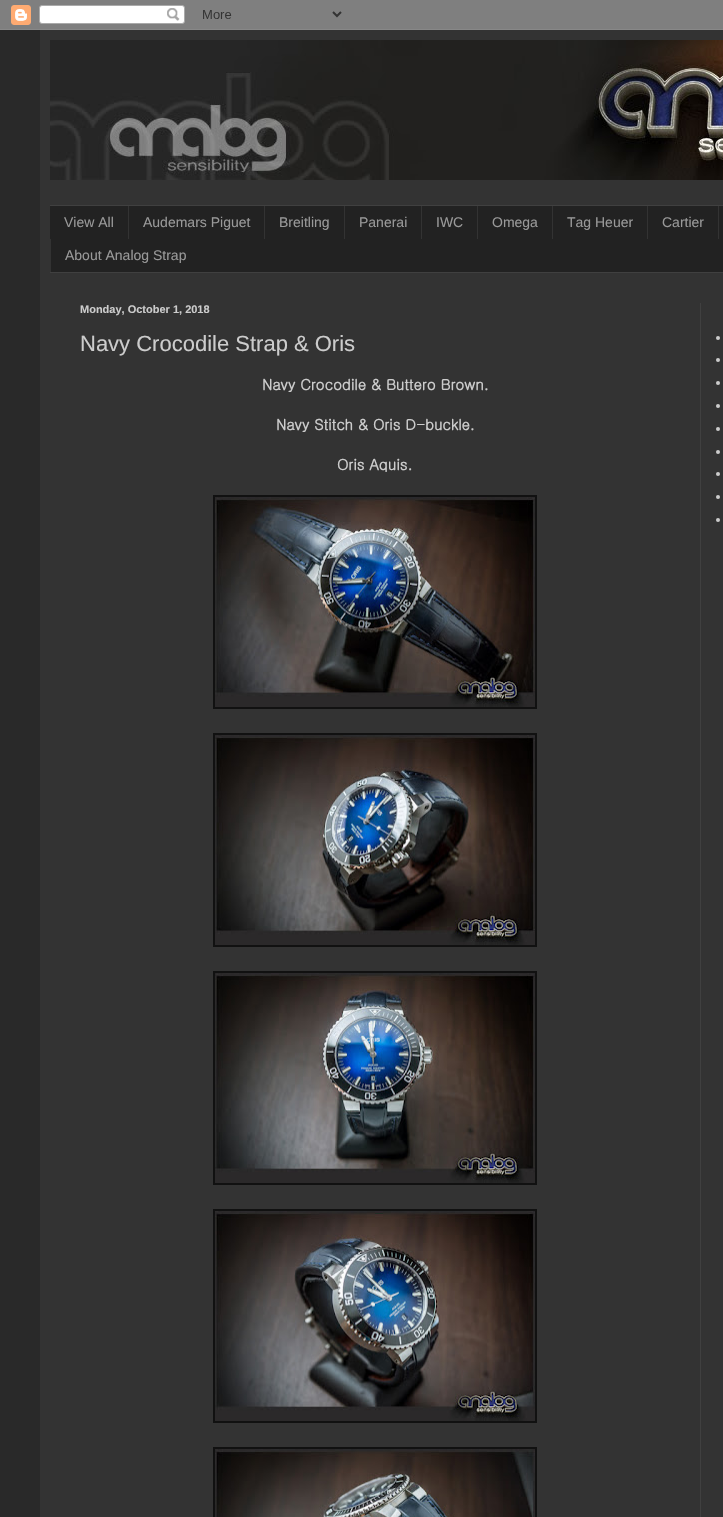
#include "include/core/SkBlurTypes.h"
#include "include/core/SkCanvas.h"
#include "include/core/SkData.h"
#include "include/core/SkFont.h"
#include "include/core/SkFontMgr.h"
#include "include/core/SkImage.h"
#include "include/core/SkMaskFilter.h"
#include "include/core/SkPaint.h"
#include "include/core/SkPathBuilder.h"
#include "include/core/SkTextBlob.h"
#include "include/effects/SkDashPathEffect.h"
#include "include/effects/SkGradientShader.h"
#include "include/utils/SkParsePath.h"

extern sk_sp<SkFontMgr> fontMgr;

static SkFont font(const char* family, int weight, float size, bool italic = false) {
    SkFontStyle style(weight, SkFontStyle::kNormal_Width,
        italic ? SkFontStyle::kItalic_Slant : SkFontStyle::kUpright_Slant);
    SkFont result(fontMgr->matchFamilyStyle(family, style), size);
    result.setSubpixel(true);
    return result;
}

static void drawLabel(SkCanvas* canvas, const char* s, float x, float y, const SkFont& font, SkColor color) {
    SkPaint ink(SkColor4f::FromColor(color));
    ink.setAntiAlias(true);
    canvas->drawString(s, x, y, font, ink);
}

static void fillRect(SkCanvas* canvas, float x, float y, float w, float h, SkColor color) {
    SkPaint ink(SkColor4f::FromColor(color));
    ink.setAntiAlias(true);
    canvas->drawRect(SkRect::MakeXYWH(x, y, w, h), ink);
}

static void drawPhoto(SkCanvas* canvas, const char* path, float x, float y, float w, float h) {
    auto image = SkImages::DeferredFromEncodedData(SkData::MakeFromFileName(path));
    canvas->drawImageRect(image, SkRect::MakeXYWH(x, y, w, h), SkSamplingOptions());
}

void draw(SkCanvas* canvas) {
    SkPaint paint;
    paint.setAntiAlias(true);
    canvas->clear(0xFF292929);
    drawPhoto(canvas, "assets/img1.png", 0, 0, 723, 30);
    fillRect(canvas, 40, 30, 683, 1487, 0xFF333333);
    drawPhoto(canvas, "assets/img2.png", 50, 40, 673, 140);
    fillRect(canvas, 50, 206, 673, 66, 0xFF222222);
    fillRect(canvas, 50, 205, 673, 1, 0xFF404040);
    fillRect(canvas, 50, 272, 673, 1, 0xFF404040);
    SkFont font1 = font("Liberation Sans", 400, 14);
    drawLabel(canvas, "View All", 64, 227, font1, 0xFF999999);
    fillRect(canvas, 128, 206, 1, 33, 0xFF333333);
    drawLabel(canvas, "Audemars Piguet", 143, 227, font1, 0xFF999999);
    fillRect(canvas, 264, 206, 1, 33, 0xFF333333);
    drawLabel(canvas, "Breitling", 279, 227, font1, 0xFF999999);
    fillRect(canvas, 344, 206, 1, 33, 0xFF333333);
    drawLabel(canvas, "Panerai", 359, 227, font1, 0xFF999999);
    fillRect(canvas, 421, 206, 1, 33, 0xFF333333);
    drawLabel(canvas, "IWC", 436, 227, font1, 0xFF999999);
    fillRect(canvas, 477, 206, 1, 33, 0xFF333333);
    drawLabel(canvas, "Omega", 492, 227, font1, 0xFF999999);
    fillRect(canvas, 552, 206, 1, 33, 0xFF333333);
    drawLabel(canvas, "Tag Heuer", 567, 227, font1, 0xFF999999);
    fillRect(canvas, 647, 206, 1, 33, 0xFF333333);
    drawLabel(canvas, "Cartier", 662, 227, font1, 0xFF999999);
    fillRect(canvas, 718, 206, 1, 33, 0xFF333333);
    fillRect(canvas, 50, 239, 1, 33, 0xFF333333);
    drawLabel(canvas, "About Analog Strap", 65, 260, font1, 0xFF999999);
    SkFont font2 = font("Liberation Sans", 700, 11);
    drawLabel(canvas, "Monday, October 1, 2018", 80, 313, font2, 0xFFCCCCCC);
    SkFont font3 = font("Liberation Sans", 400, 22);
    drawLabel(canvas, "Navy Crocodile Strap & Oris", 80, 351, font3, 0xFFCCCCCC);
    SkFont font4 = font("Gulim", 700, 14.7f);
    drawLabel(canvas, "Navy Crocodile & Buttero Brown.", 262, 390, font4, 0xFFCCCCCC);
    drawLabel(canvas, "Navy Stitch & Oris D-buckle.", 276, 430, font4, 0xFFCCCCCC);
    drawLabel(canvas, "Oris Aquis.", 337, 470, font4, 0xFFCCCCCC);
    fillRect(canvas, 213, 495, 324, 214, 0xFF111111);
    drawPhoto(canvas, "assets/img3.png", 215, 497, 320, 210);
    fillRect(canvas, 213, 733, 324, 214, 0xFF111111);
    drawPhoto(canvas, "assets/img4.png", 215, 735, 320, 210);
    fillRect(canvas, 213, 971, 324, 214, 0xFF111111);
    drawPhoto(canvas, "assets/img5.png", 215, 973, 320, 210);
    fillRect(canvas, 213, 1209, 324, 214, 0xFF111111);
    drawPhoto(canvas, "assets/img6.png", 215, 1211, 320, 210);
    fillRect(canvas, 213, 1447, 324, 70, 0xFF111111);
    drawPhoto(canvas, "assets/img7.png", 215, 1449, 320, 68);
    paint.setColor(0xFFCCCCCC);
    canvas->drawCircle(718, 338, 2, paint);
    canvas->drawCircle(718, 360, 2, paint);
    canvas->drawCircle(718, 383, 2, paint);
    canvas->drawCircle(718, 406, 2, paint);
    canvas->drawCircle(718, 429, 2, paint);
    canvas->drawCircle(718, 452, 2, paint);
    canvas->drawCircle(718, 474, 2, paint);
    canvas->drawCircle(718, 497, 2, paint);
    canvas->drawCircle(718, 520, 2, paint);
    fillRect(canvas, 700, 303, 1, 1214, 0xFF404040);
}
